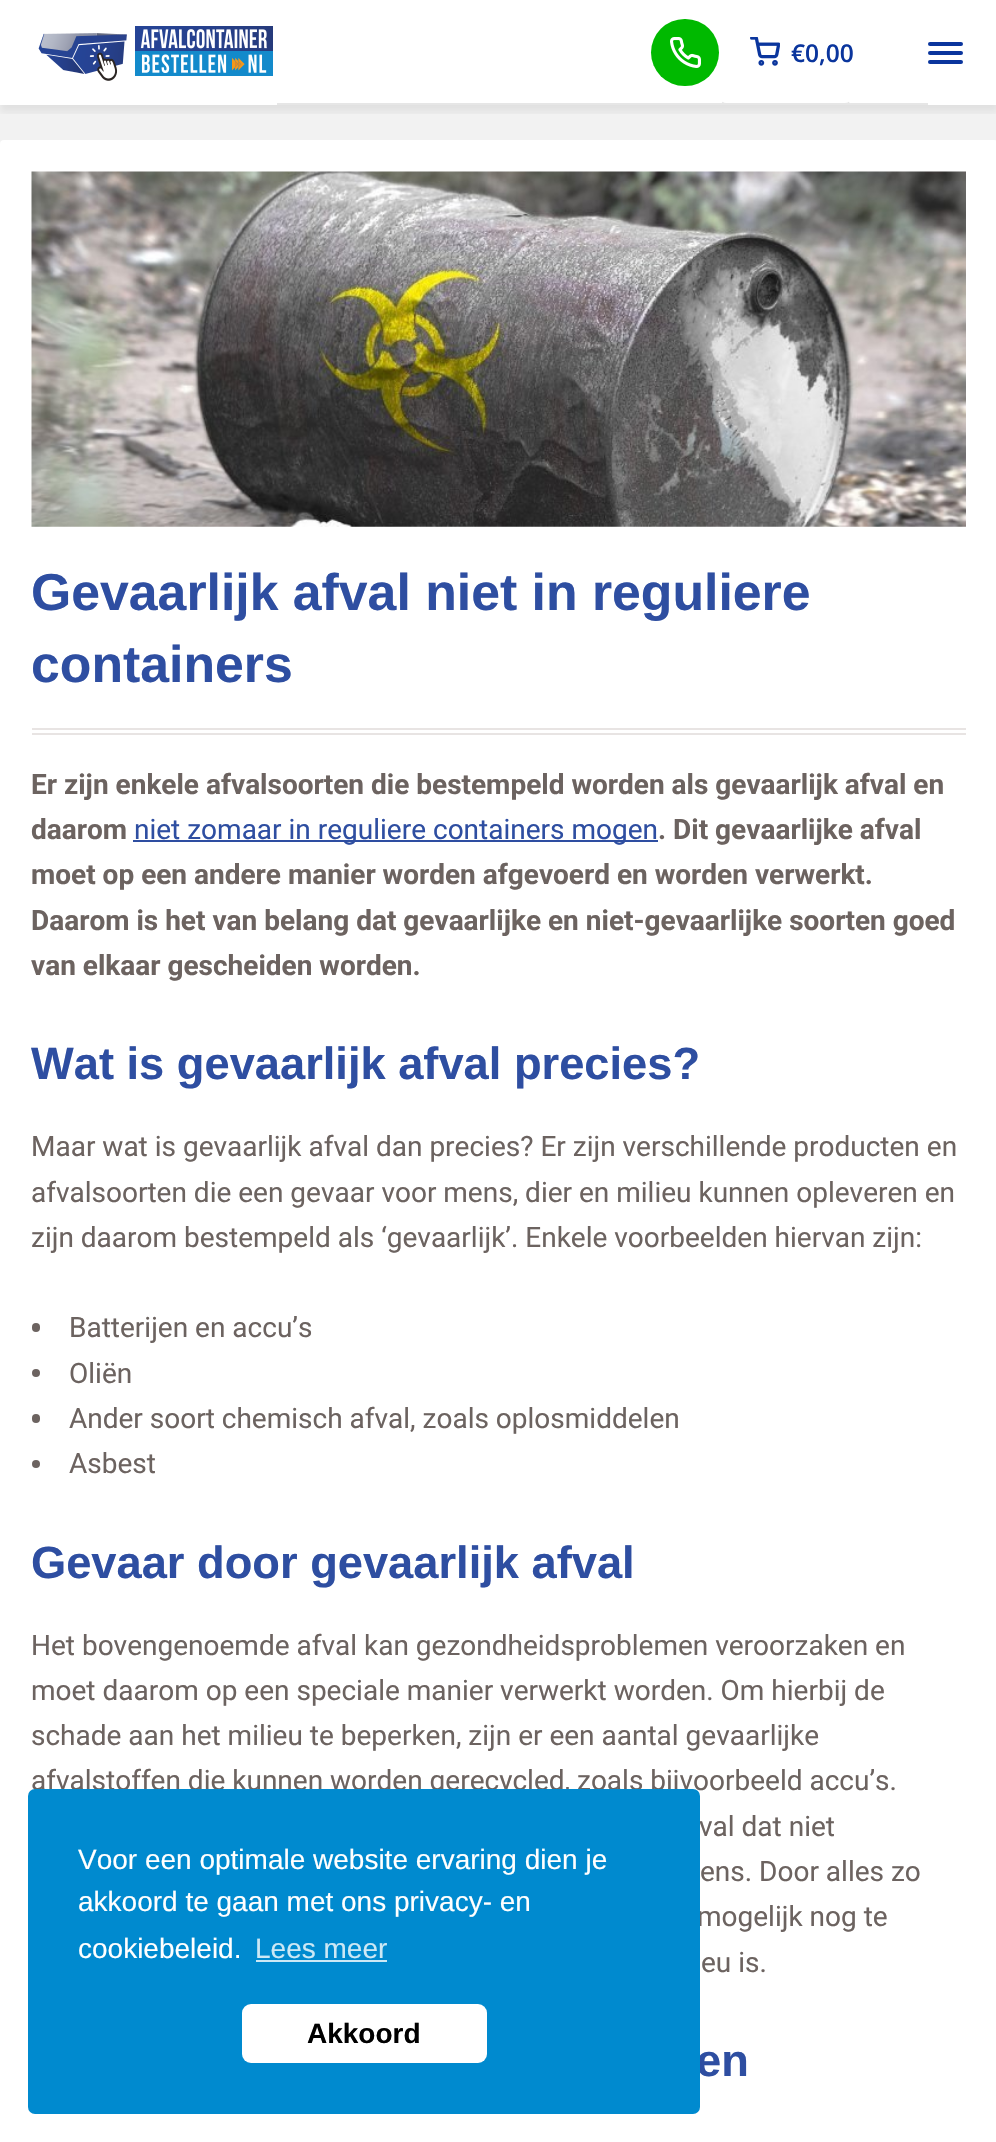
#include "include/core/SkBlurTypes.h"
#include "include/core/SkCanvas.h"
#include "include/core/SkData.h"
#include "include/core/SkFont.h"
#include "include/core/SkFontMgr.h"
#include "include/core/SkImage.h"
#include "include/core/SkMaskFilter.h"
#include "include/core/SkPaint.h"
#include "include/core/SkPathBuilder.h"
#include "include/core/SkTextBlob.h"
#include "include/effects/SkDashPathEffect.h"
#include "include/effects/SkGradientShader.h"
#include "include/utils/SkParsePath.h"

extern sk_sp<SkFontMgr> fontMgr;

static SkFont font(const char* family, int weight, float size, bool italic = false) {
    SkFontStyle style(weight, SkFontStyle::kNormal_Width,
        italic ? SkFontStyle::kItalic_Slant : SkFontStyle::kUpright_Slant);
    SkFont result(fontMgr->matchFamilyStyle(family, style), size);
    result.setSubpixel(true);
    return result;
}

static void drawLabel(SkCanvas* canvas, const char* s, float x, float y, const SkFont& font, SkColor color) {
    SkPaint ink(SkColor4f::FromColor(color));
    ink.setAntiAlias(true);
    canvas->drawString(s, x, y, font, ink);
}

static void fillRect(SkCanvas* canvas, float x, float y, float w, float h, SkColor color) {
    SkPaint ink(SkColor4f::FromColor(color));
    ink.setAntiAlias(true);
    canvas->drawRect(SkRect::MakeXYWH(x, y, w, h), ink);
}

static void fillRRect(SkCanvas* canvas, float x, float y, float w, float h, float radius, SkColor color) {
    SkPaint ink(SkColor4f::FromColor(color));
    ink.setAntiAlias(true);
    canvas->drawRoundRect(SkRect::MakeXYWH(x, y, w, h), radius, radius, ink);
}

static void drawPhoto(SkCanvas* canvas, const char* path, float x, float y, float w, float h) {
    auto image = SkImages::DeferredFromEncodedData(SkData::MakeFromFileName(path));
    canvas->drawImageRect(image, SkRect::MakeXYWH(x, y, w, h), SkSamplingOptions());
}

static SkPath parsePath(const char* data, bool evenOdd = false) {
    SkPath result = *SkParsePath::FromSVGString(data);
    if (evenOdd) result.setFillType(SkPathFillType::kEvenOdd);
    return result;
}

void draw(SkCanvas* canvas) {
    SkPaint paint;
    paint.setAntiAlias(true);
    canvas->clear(0xFFFFFFFF);
    fillRect(canvas, 0, 105, 996, 39, 0xFFF2F2F2);
    canvas->save();
    canvas->clipRect(SkRect::MakeXYWH(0, 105, 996, 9));
    paint.setColor(0x12000000);
    paint.setMaskFilter(SkMaskFilter::MakeBlur(kNormal_SkBlurStyle, 3.5f));
    canvas->drawRect(SkRect::MakeXYWH(0, 7, 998, 105), paint);
    paint.setMaskFilter(nullptr);
    canvas->restore();
    drawPhoto(canvas, "assets/img1.png", 38, 26, 235, 55);
    fillRect(canvas, 277, 103, 651, 2, 0xFFE6E6E6);
    fillRRect(canvas, 651, 19, 68, 67, 33.5f, 0xFF00B900);
    drawPhoto(canvas, "assets/img2.png", 670, 37, 31, 31);
    paint.setStroke(true);
    paint.setStrokeWidth(1.8f);
    paint.setColor(0xFFE6E6E6);
    canvas->drawPath(parsePath("M849.5 102.5C848.5 103.5 847 104 845 104H726C724.5 104 723 103.5 722 102.5"), paint);
    paint.setColor(0xFFFFFFFF);
    canvas->drawPath(parsePath("M722 102.5C717.5 98 720 84 720 83V22C720-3.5 718.5 1 746 1H825.5C853 1 851.5-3.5 851.5 22V83C851.5 84 854 98 849.5 102.5"), paint);
    drawPhoto(canvas, "assets/img3.png", 750, 37, 30, 29);
    SkFont font1 = font("Open Sans", 600, 24.5f);
    drawLabel(canvas, "€0,00", 791, 62, font1, 0xFF0A359D);
    fillRRect(canvas, 928, 42, 35, 4, 2, 0xFF0A359D);
    fillRRect(canvas, 928, 51, 35, 4, 2, 0xFF0A359D);
    fillRRect(canvas, 928, 60, 35, 4, 2, 0xFF0A359D);
    fillRRect(canvas, 0, 140, 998, 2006, 4, 0xFFFFFFFF);
    drawPhoto(canvas, "assets/img4.png", 31, 171, 935, 356);
    SkFont font2 = font("Liberation Sans", 700, 51.75f);
    drawLabel(canvas, "Gevaarlijk afval niet in reguliere", 31, 610, font2, 0xFF2E4EA1);
    drawLabel(canvas, "containers", 31, 682, font2, 0xFF2E4EA1);
    fillRect(canvas, 32, 728, 934, 2, 0xFFE8E4E3);
    fillRect(canvas, 32, 733, 934, 2, 0xFFE8E4E3);
    SkFont font3 = font("Roboto", 700, 28);
    drawLabel(canvas, "Er zijn enkele afvalsoorten die bestempeld worden als gevaarlijk afval en", 31, 794, font3, 0xFF6C6360);
    drawLabel(canvas, "daarom", 31, 839, font3, 0xFF6C6360);
    fillRect(canvas, 133, 840, 525, 2, 0xFF2E4EA1);
    SkFont font4 = font("Roboto", 400, 28);
    drawLabel(canvas, "niet zomaar in reguliere containers mogen", 134, 839, font4, 0xFF2E4EA1);
    drawLabel(canvas, ". Dit gevaarlijke afval", 658, 839, font3, 0xFF6C6360);
    drawLabel(canvas, "moet op een andere manier worden afgevoerd en worden verwerkt.", 31, 884, font3, 0xFF6C6360);
    drawLabel(canvas, "Daarom is het van belang dat gevaarlijke en niet-gevaarlijke soorten goed", 31, 930, font3, 0xFF6C6360);
    drawLabel(canvas, "van elkaar gescheiden worden.", 31, 975, font3, 0xFF6C6360);
    SkFont font5 = font("Liberation Sans", 700, 45.25f);
    drawLabel(canvas, "Wat is gevaarlijk afval precies?", 31, 1079, font5, 0xFF2E4EA1);
    drawLabel(canvas, "Maar wat is gevaarlijk afval dan precies? Er zijn verschillende producten en", 31, 1156, font4, 0xFF6C6360);
    drawLabel(canvas, "afvalsoorten die een gevaar voor mens, dier en milieu kunnen opleveren en", 31, 1202, font4, 0xFF6C6360);
    drawLabel(canvas, "zijn daarom bestempeld als ‘gevaarlijk’. Enkele voorbeelden hiervan zijn:", 31, 1247, font4, 0xFF6C6360);
    fillRRect(canvas, 32, 1323, 8, 9, 4, 0xFF6C6360);
    drawLabel(canvas, "Batterijen en accu’s", 69, 1337, font4, 0xFF6C6360);
    paint.setStroke(false);
    paint.setColor(0xFF6C6360);
    canvas->drawCircle(36, 1373, 4, paint);
    drawLabel(canvas, "Oliën", 69, 1383, font4, 0xFF6C6360);
    fillRRect(canvas, 32, 1414, 8, 9, 4, 0xFF6C6360);
    drawLabel(canvas, "Ander soort chemisch afval, zoals oplosmiddelen", 69, 1428, font4, 0xFF6C6360);
    canvas->drawCircle(36, 1464, 4, paint);
    drawLabel(canvas, "Asbest", 69, 1473, font4, 0xFF6C6360);
    drawLabel(canvas, "Gevaar door gevaarlijk afval", 31, 1578, font5, 0xFF2E4EA1);
    drawLabel(canvas, "Het bovengenoemde afval kan gezondheidsproblemen veroorzaken en", 31, 1655, font4, 0xFF6C6360);
    drawLabel(canvas, "moet daarom op een speciale manier verwerkt worden. Om hierbij de", 31, 1700, font4, 0xFF6C6360);
    drawLabel(canvas, "schade aan het milieu te beperken, zijn er een aantal gevaarlijke", 31, 1745, font4, 0xFF6C6360);
    drawLabel(canvas, "afvalstoffen die kunnen worden gerecycled, zoals bijvoorbeeld accu’s.", 31, 1790, font4, 0xFF6C6360);
    drawLabel(canvas, "val dat niet", 699, 1836, font4, 0xFF6C6360);
    drawLabel(canvas, "ens. Door alles zo", 700, 1881, font4, 0xFF6C6360);
    drawLabel(canvas, "mogelijk nog te", 697, 1926, font4, 0xFF6C6360);
    drawLabel(canvas, "eu is.", 701, 1972, font4, 0xFF6C6360);
    drawLabel(canvas, "en", 696, 2076, font5, 0xFF2E4EA1);
    fillRRect(canvas, 28, 1789, 672, 325, 7, 0xFF008ACF);
    SkFont font6 = font("Liberation Sans", 400, 28);
    drawLabel(canvas, "Voor een optimale website ervaring dien je", 78, 1869, font6, 0xFFFFFFFF);
    drawLabel(canvas, "akkoord te gaan met ons privacy- en", 78, 1911, font6, 0xFFFFFFFF);
    drawLabel(canvas, "cookiebeleid.", 78, 1958, font6, 0xFFFFFFFF);
    drawLabel(canvas, "Lees meer", 255, 1958, font6, 0xFFCCE8F5);
    fillRect(canvas, 256, 1960, 131, 2, 0xFFCCE8F5);
    fillRRect(canvas, 242, 2004, 245, 59, 9, 0xFFFFFFFF);
    SkFont font7 = font("Liberation Sans", 700, 28);
    drawLabel(canvas, "Akkoord", 307, 2043, font7, 0xFF000000);
}
